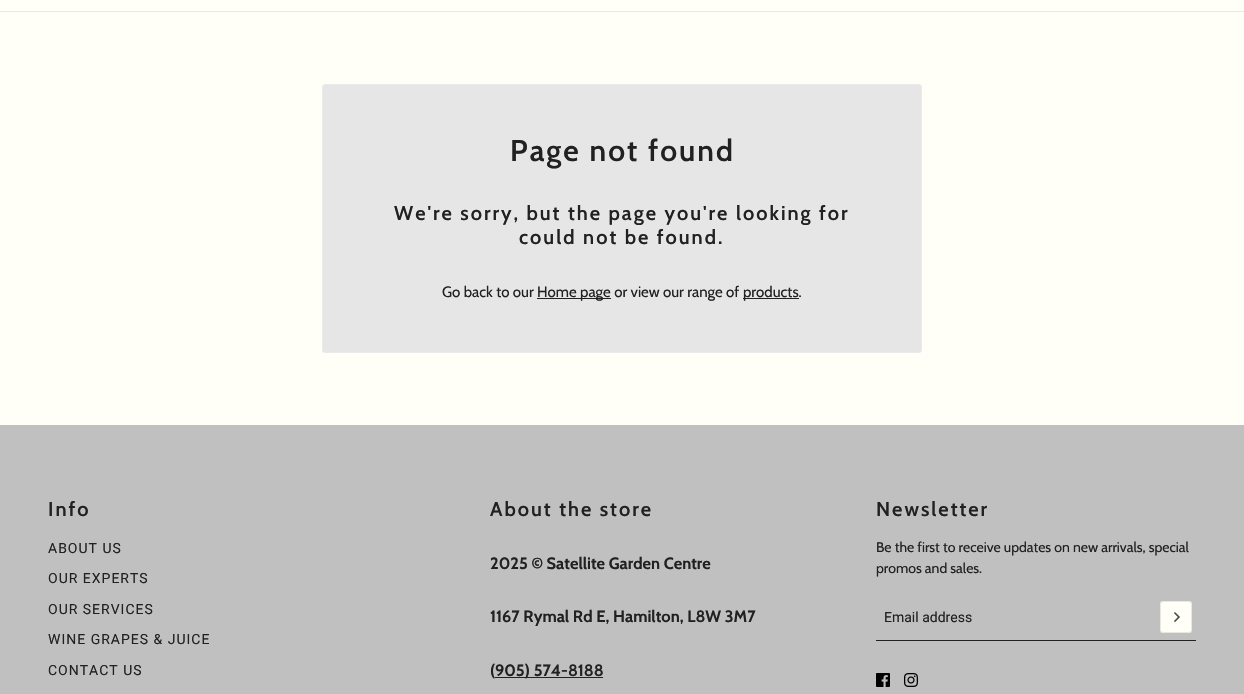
#include "include/core/SkBlurTypes.h"
#include "include/core/SkCanvas.h"
#include "include/core/SkData.h"
#include "include/core/SkFont.h"
#include "include/core/SkFontMgr.h"
#include "include/core/SkImage.h"
#include "include/core/SkMaskFilter.h"
#include "include/core/SkPaint.h"
#include "include/core/SkPathBuilder.h"
#include "include/core/SkTextBlob.h"
#include "include/effects/SkDashPathEffect.h"
#include "include/effects/SkGradientShader.h"
#include "include/utils/SkParsePath.h"

extern sk_sp<SkFontMgr> fontMgr;

static SkFont font(const char* family, int weight, float size, bool italic = false) {
    SkFontStyle style(weight, SkFontStyle::kNormal_Width,
        italic ? SkFontStyle::kItalic_Slant : SkFontStyle::kUpright_Slant);
    SkFont result(fontMgr->matchFamilyStyle(family, style), size);
    result.setSubpixel(true);
    return result;
}

static void drawLabel(SkCanvas* canvas, const char* s, float x, float y, const SkFont& font, SkColor color) {
    SkPaint ink(SkColor4f::FromColor(color));
    ink.setAntiAlias(true);
    canvas->drawString(s, x, y, font, ink);
}

static void drawTracked(SkCanvas* canvas, const char* s, float x, float y, const SkFont& font, const SkPaint& ink, float letter, float word) {
    std::vector<SkGlyphID> glyphs(font.countText(s, strlen(s), SkTextEncoding::kUTF8));
    std::vector<float> xs(glyphs.size());
    font.textToGlyphs(s, strlen(s), SkTextEncoding::kUTF8, glyphs);
    font.getXPos(glyphs, xs, x);
    float extra = 0;
    for (size_t i = 0; i < glyphs.size(); i++) {
        xs[i] += extra;
        extra += letter + word * (glyphs[i] == font.unicharToGlyph(' '));
    }
    canvas->drawTextBlob(SkTextBlob::MakeFromPosHGlyphs(glyphs, xs, y, font), 0, 0, ink);
}

static void fillRect(SkCanvas* canvas, float x, float y, float w, float h, SkColor color) {
    SkPaint ink(SkColor4f::FromColor(color));
    ink.setAntiAlias(true);
    canvas->drawRect(SkRect::MakeXYWH(x, y, w, h), ink);
}

static void fillRRect(SkCanvas* canvas, float x, float y, float w, float h, float radius, SkColor color) {
    SkPaint ink(SkColor4f::FromColor(color));
    ink.setAntiAlias(true);
    canvas->drawRoundRect(SkRect::MakeXYWH(x, y, w, h), radius, radius, ink);
}

static void drawPhoto(SkCanvas* canvas, const char* path, float x, float y, float w, float h) {
    auto image = SkImages::DeferredFromEncodedData(SkData::MakeFromFileName(path));
    canvas->drawImageRect(image, SkRect::MakeXYWH(x, y, w, h), SkSamplingOptions());
}

void draw(SkCanvas* canvas) {
    SkPaint paint;
    paint.setAntiAlias(true);
    canvas->clear(0xFFFFFFF7);
    fillRect(canvas, 0, 11, 1244, 1, 0xFFE9E9E2);
    paint.setColor(0xFFE6E6E6);
    canvas->drawRoundRect(SkRect::MakeXYWH(322.5f, 84.5f, 599, 268), 2.5f, 2.5f, paint);
    paint.setStroke(true);
    paint.setStrokeWidth(1);
    paint.setColor(0xFFEAEAEA);
    canvas->drawRoundRect(SkRect::MakeXYWH(322.5f, 84.5f, 599, 268), 2.5f, 2.5f, paint);
    SkFont font1 = font("Cabin", 600, 30);
    paint.setStroke(false);
    paint.setColor(0xFF212121);
    drawTracked(canvas, "Page not found", 510, 161, font1, paint, 2, 0);
    SkFont font2 = font("Cabin", 600, 20);
    drawTracked(canvas, "We're sorry, but the page you're looking for", 394, 220, font2, paint, 2, 0);
    drawTracked(canvas, "could not be found.", 519, 244, font2, paint, 2, 0);
    SkFont font3 = font("Cabin", 400, 15);
    drawLabel(canvas, "Go back to our", 442, 297, font3, 0xFF212121);
    fillRect(canvas, 537, 298, 74, 1, 0xFF212121);
    drawLabel(canvas, "Home page or view our range of", 537, 297, font3, 0xFF212121);
    fillRect(canvas, 743, 298, 56, 1, 0xFF212121);
    drawLabel(canvas, "products.", 743, 297, font3, 0xFF212121);
    fillRect(canvas, 0, 425, 1244, 269, 0xFFC0C0C0);
    drawTracked(canvas, "Info", 48, 516, font2, paint, 2, 0);
    SkFont font4 = font("Roboto", 400, 14);
    drawTracked(canvas, "ABOUT US", 48, 553, font4, paint, 1, 0);
    drawTracked(canvas, "OUR EXPERTS", 48, 583, font4, paint, 1, 0);
    drawTracked(canvas, "OUR SERVICES", 48, 614, font4, paint, 1, 0);
    drawTracked(canvas, "WINE GRAPES & JUICE", 48, 644, font4, paint, 1, 0);
    drawTracked(canvas, "CONTACT US", 48, 675, font4, paint, 1, 0);
    drawTracked(canvas, "About the store", 490, 516, font2, paint, 2, 0);
    SkFont font5 = font("Cabin", 700, 16.4f);
    drawLabel(canvas, "2025 © Satellite Garden Centre", 490, 569, font5, 0xFF212121);
    drawLabel(canvas, "1167 Rymal Rd E, Hamilton, L8W 3M7", 490, 622, font5, 0xFF212121);
    drawLabel(canvas, "(", 490, 676, font5, 0xFF212121);
    fillRect(canvas, 495, 677, 108, 1, 0xFF212121);
    drawLabel(canvas, "905) 574-8188", 495, 676, font5, 0xFF212121);
    drawTracked(canvas, "Newsletter", 876, 516, font2, paint, 2, 0);
    SkFont font6 = font("Cabin", 400, 14);
    drawLabel(canvas, "Be the first to receive updates on new arrivals, special", 876, 552, font6, 0xFF212121);
    drawLabel(canvas, "promos and sales.", 876, 573, font6, 0xFF212121);
    fillRect(canvas, 876, 640, 320, 1, 0xFF212121);
    drawLabel(canvas, "Email address", 884, 622, font4, 0xFF212121);
    fillRRect(canvas, 1160, 601, 32, 32, 3, 0xFFFFFFF7);
    paint.setStroke(true);
    paint.setColor(0x1A212121);
    canvas->drawRoundRect(SkRect::MakeXYWH(1160.5f, 601.5f, 31, 31), 2.5f, 2.5f, paint);
    drawPhoto(canvas, "assets/img1.png", 1174, 612, 6, 10);
    drawPhoto(canvas, "assets/img2.png", 876, 673, 14, 14);
    drawPhoto(canvas, "assets/img3.png", 904, 673, 14, 14);
}
